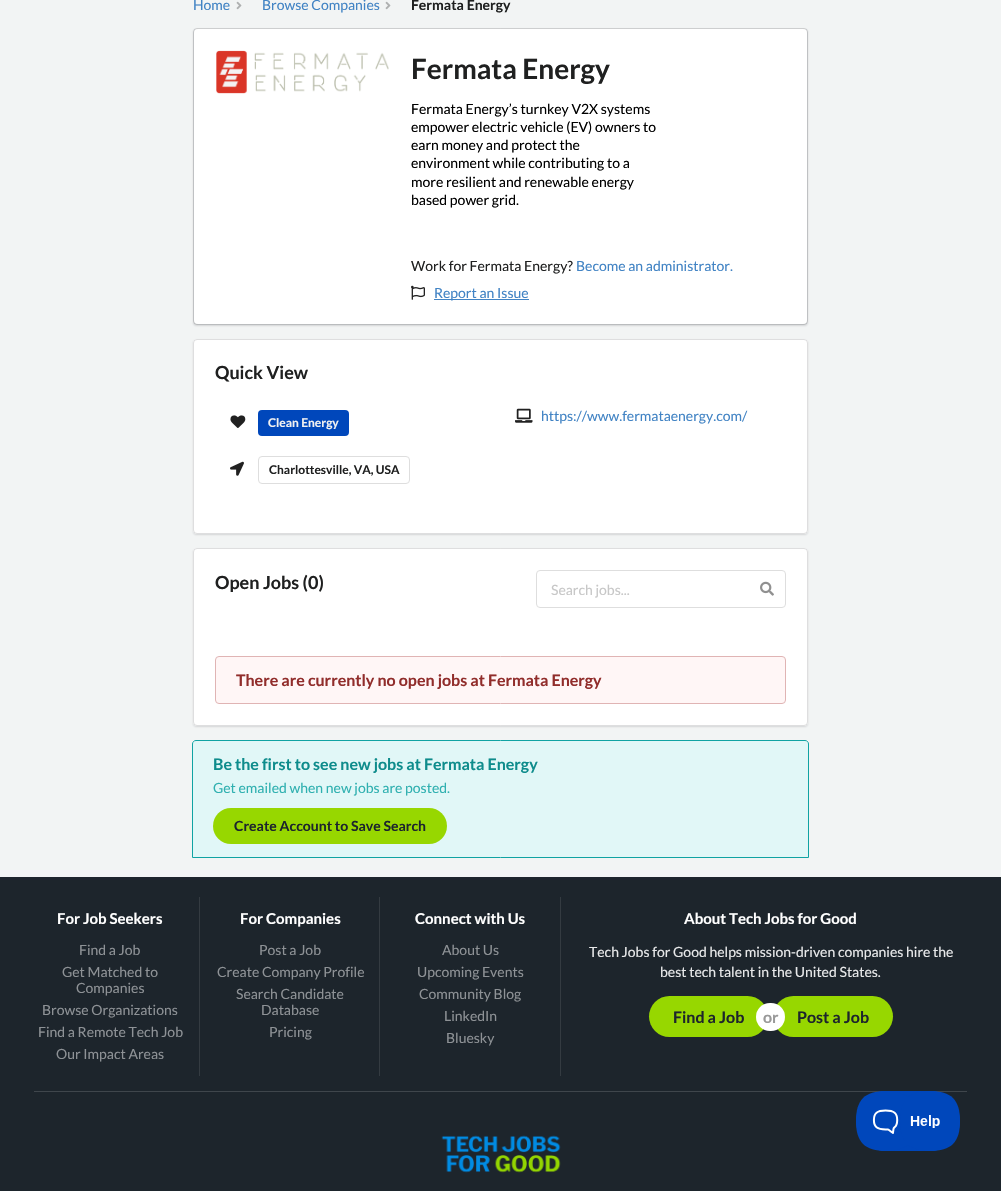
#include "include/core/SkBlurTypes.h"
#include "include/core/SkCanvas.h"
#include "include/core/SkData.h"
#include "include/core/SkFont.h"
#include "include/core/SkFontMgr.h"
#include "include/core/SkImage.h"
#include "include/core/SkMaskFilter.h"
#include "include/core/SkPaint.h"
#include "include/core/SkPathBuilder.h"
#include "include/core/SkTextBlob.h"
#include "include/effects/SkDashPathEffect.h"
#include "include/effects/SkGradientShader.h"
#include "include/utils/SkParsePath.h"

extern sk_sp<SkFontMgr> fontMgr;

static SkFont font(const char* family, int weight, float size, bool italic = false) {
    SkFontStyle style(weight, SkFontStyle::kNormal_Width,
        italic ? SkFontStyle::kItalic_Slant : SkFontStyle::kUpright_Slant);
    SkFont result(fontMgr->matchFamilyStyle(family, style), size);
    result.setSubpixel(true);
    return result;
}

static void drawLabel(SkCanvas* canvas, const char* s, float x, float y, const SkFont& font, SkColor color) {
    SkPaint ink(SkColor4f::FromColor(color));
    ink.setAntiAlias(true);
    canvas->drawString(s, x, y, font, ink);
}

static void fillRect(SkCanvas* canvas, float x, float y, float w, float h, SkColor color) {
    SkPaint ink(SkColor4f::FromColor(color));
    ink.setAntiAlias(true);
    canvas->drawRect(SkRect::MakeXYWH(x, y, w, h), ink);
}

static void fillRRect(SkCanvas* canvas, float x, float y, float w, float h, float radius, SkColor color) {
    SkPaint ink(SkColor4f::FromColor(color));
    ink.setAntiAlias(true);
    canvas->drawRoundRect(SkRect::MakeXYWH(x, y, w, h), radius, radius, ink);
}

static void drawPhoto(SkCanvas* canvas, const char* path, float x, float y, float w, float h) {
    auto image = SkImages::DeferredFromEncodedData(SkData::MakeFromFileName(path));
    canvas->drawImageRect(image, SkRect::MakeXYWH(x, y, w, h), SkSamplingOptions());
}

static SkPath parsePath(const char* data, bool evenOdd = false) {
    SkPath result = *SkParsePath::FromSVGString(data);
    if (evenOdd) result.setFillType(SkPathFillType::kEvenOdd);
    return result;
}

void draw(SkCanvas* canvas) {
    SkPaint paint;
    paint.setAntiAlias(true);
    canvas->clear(0xFFF2F4F4);
    SkFont font1 = font("Lato", 400, 14);
    drawLabel(canvas, "Home", 193, 10, font1, 0xFF4183C4);
    drawPhoto(canvas, "assets/img1.png", 236, 1, 6, 9);
    drawLabel(canvas, "Browse Companies", 262, 10, font1, 0xFF4183C4);
    drawPhoto(canvas, "assets/img1.png", 385, 1, 6, 9);
    SkFont font2 = font("Lato", 700, 14);
    drawLabel(canvas, "Fermata Energy", 411, 10, font2, 0xFF1F2020);
    paint.setColor(0x26222426);
    paint.setMaskFilter(SkMaskFilter::MakeBlur(kNormal_SkBlurStyle, 1));
    canvas->drawRoundRect(SkRect::MakeXYWH(193, 29, 615, 297), 4, 4, paint);
    paint.setMaskFilter(nullptr);
    paint.setStroke(true);
    paint.setStrokeWidth(1);
    canvas->drawRoundRect(SkRect::MakeXYWH(193.5f, 28.5f, 614, 296), 3.5f, 3.5f, paint);
    fillRRect(canvas, 194, 29, 613, 295, 4, 0xFFFFFFFF);
    drawPhoto(canvas, "assets/img2.png", 216, 50, 173, 44);
    SkFont font3 = font("Lato", 700, 28);
    drawLabel(canvas, "Fermata Energy", 411, 79, font3, 0xFF1F2020);
    drawLabel(canvas, "Fermata Energy’s turnkey V2X systems", 411, 114, font1, 0xFF000000);
    drawLabel(canvas, "empower electric vehicle (EV) owners to", 411, 132, font1, 0xFF000000);
    drawLabel(canvas, "earn money and protect the", 411, 150, font1, 0xFF000000);
    drawLabel(canvas, "environment while contributing to a", 411, 168, font1, 0xFF000000);
    drawLabel(canvas, "more resilient and renewable energy", 411, 187, font1, 0xFF000000);
    drawLabel(canvas, "based power grid.", 411, 205, font1, 0xFF000000);
    drawLabel(canvas, "Work for Fermata Energy?", 411, 271, font1, 0xFF1F2020);
    drawLabel(canvas, "Become an administrator.", 576, 271, font1, 0xFF4183C4);
    drawPhoto(canvas, "assets/img3.png", 411, 285, 14, 15);
    fillRect(canvas, 434, 299, 95, 1, 0xFF4183C4);
    drawLabel(canvas, "Report an Issue", 434, 298, font1, 0xFF4183C4);
    paint.setStroke(false);
    paint.setMaskFilter(SkMaskFilter::MakeBlur(kNormal_SkBlurStyle, 1));
    canvas->drawRoundRect(SkRect::MakeXYWH(193, 340, 615, 195), 4, 4, paint);
    paint.setMaskFilter(nullptr);
    fillRRect(canvas, 193, 339, 615, 195, 4, 0xFFFFFFFF);
    paint.setStroke(true);
    canvas->drawRoundRect(SkRect::MakeXYWH(193.5f, 339.5f, 614, 194), 3.5f, 3.5f, paint);
    SkFont font4 = font("Lato", 700, 18);
    drawLabel(canvas, "Quick View", 215, 379, font4, 0xFF1F2020);
    drawPhoto(canvas, "assets/img4.png", 230, 415, 16, 13);
    fillRRect(canvas, 258, 410, 91, 26, 4, 0xFF0047BB);
    SkFont font5 = font("Lato", 700, 12);
    drawLabel(canvas, "Clean Energy", 268, 427, font5, 0xFFF1F1F1);
    drawPhoto(canvas, "assets/img5.png", 230, 461, 14, 15);
    paint.setColor(0xFFDEDEDE);
    canvas->drawRoundRect(SkRect::MakeXYWH(258.5f, 456.5f, 151, 27), 3.5f, 3.5f, paint);
    drawLabel(canvas, "Charlottesville, VA, USA", 269, 474, font5, 0xFF1F2020);
    drawPhoto(canvas, "assets/img6.png", 515, 408, 18, 15);
    drawLabel(canvas, "https://www.fermataenergy.com/", 541, 421, font1, 0xFF4183C4);
    paint.setStroke(false);
    paint.setColor(0x26222426);
    paint.setMaskFilter(SkMaskFilter::MakeBlur(kNormal_SkBlurStyle, 1));
    canvas->drawRoundRect(SkRect::MakeXYWH(193, 549, 615, 178), 4, 4, paint);
    paint.setMaskFilter(nullptr);
    fillRRect(canvas, 193, 548, 615, 178, 4, 0xFFFFFFFF);
    paint.setStroke(true);
    canvas->drawRoundRect(SkRect::MakeXYWH(193.5f, 548.5f, 614, 177), 3.5f, 3.5f, paint);
    drawLabel(canvas, "Open Jobs (0)", 215, 589, font4, 0xFF1F2020);
    paint.setColor(0xFFDEDEDE);
    canvas->drawRoundRect(SkRect::MakeXYWH(536.5f, 570.5f, 249, 37), 3.5f, 3.5f, paint);
    drawLabel(canvas, "Search jobs...", 551, 595, font1, 0xFFC7C7C7);
    drawPhoto(canvas, "assets/img7.png", 760, 581, 14, 15);
    paint.setStroke(false);
    paint.setColor(0xFFFFF6F6);
    canvas->drawRoundRect(SkRect::MakeXYWH(215.5f, 656.5f, 570, 47), 3.5f, 3.5f, paint);
    paint.setStroke(true);
    paint.setColor(0xFFE0B4B4);
    canvas->drawRoundRect(SkRect::MakeXYWH(215.5f, 656.5f, 570, 47), 3.5f, 3.5f, paint);
    SkFont font6 = font("Lato", 700, 16);
    drawLabel(canvas, "There are currently no open jobs at Fermata Energy", 236, 686, font6, 0xFF912D2B);
    paint.setStroke(false);
    paint.setColor(0xFFE1F7F7);
    canvas->drawPath(parsePath("M196 740.5H805C807 740.5 808.5 742 808.5 744V857.5H192.5V744C192.5 742 194 740.5 196 740.5Z"), paint);
    paint.setStroke(true);
    paint.setColor(0xFF10A3A3);
    canvas->drawPath(parsePath("M196 740.5H805C807 740.5 808.5 742 808.5 744V857.5H192.5V744C192.5 742 194 740.5 196 740.5Z"), paint);
    drawLabel(canvas, "Be the first to see new jobs at Fermata Energy", 213, 770, font6, 0xFF0E8C8C);
    drawLabel(canvas, "Get emailed when new jobs are posted.", 213, 793, font1, 0xFF2FB0B0);
    fillRRect(canvas, 213, 808, 234, 36, 18, 0xFF97D700);
    drawLabel(canvas, "Create Account to Save Search", 234, 831, font2, 0xFF1D252C);
    fillRect(canvas, 0, 877, 1001, 314, 0xFF1D252C);
    SkFont font7 = font("Lato", 700, 15);
    drawLabel(canvas, "For Job Seekers", 57, 924, font7, 0xFFFFFFFF);
    drawLabel(canvas, "Find a Job", 79, 955, font1, 0xFF8E9296);
    drawLabel(canvas, "Get Matched to", 62, 977, font1, 0xFF8E9296);
    drawLabel(canvas, "Companies", 76, 993, font1, 0xFF8E9296);
    drawLabel(canvas, "Browse Organizations", 42, 1015, font1, 0xFF8E9296);
    drawLabel(canvas, "Find a Remote Tech Job", 38, 1037, font1, 0xFF8E9296);
    drawLabel(canvas, "Our Impact Areas", 56, 1059, font1, 0xFF8E9296);
    fillRect(canvas, 199, 897, 1, 179, 0xFF343B41);
    drawLabel(canvas, "For Companies", 240, 924, font7, 0xFFFFFFFF);
    drawLabel(canvas, "Post a Job", 259, 955, font1, 0xFF8E9296);
    drawLabel(canvas, "Create Company Profile", 217, 977, font1, 0xFF8E9296);
    drawLabel(canvas, "Search Candidate", 236, 999, font1, 0xFF8E9296);
    drawLabel(canvas, "Database", 261, 1015, font1, 0xFF8E9296);
    drawLabel(canvas, "Pricing", 269, 1037, font1, 0xFF8E9296);
    fillRect(canvas, 379, 897, 1, 179, 0xFF343B41);
    drawLabel(canvas, "Connect with Us", 415, 924, font7, 0xFFFFFFFF);
    drawLabel(canvas, "About Us", 442, 955, font1, 0xFF8E9296);
    drawLabel(canvas, "Upcoming Events", 417, 977, font1, 0xFF8E9296);
    drawLabel(canvas, "Community Blog", 419, 999, font1, 0xFF8E9296);
    drawLabel(canvas, "LinkedIn", 444, 1021, font1, 0xFF8E9296);
    drawLabel(canvas, "Bluesky", 446, 1043, font1, 0xFF8E9296);
    fillRect(canvas, 560, 897, 1, 179, 0xFF343B41);
    drawLabel(canvas, "About Tech Jobs for Good", 684, 924, font7, 0xFFFFFFFF);
    drawLabel(canvas, "Tech Jobs for Good helps mission-driven companies hire the", 589, 957, font1, 0xFFE8E9EA);
    drawLabel(canvas, "best tech talent in the United States.", 660, 977, font1, 0xFFE8E9EA);
    fillRRect(canvas, 649, 996, 119, 41, 20.5f, 0xFF97D700);
    drawLabel(canvas, "Find a Job", 673, 1023, font6, 0xFF1D252C);
    fillRRect(canvas, 773, 996, 120, 41, 20.5f, 0xFF97D700);
    fillRRect(canvas, 756, 1003, 29, 28, 14, 0xFFFFFFFF);
    drawLabel(canvas, "or", 763, 1023, font6, 0xFF999999);
    drawLabel(canvas, "Post a Job", 797, 1023, font6, 0xFF1D252C);
    fillRect(canvas, 34, 1091, 933, 1, 0xFF3F464C);
    drawPhoto(canvas, "assets/img8.png", 441, 1135, 120, 38);
    drawPhoto(canvas, "assets/img9.png", 856, 1091, 104, 60);
}
